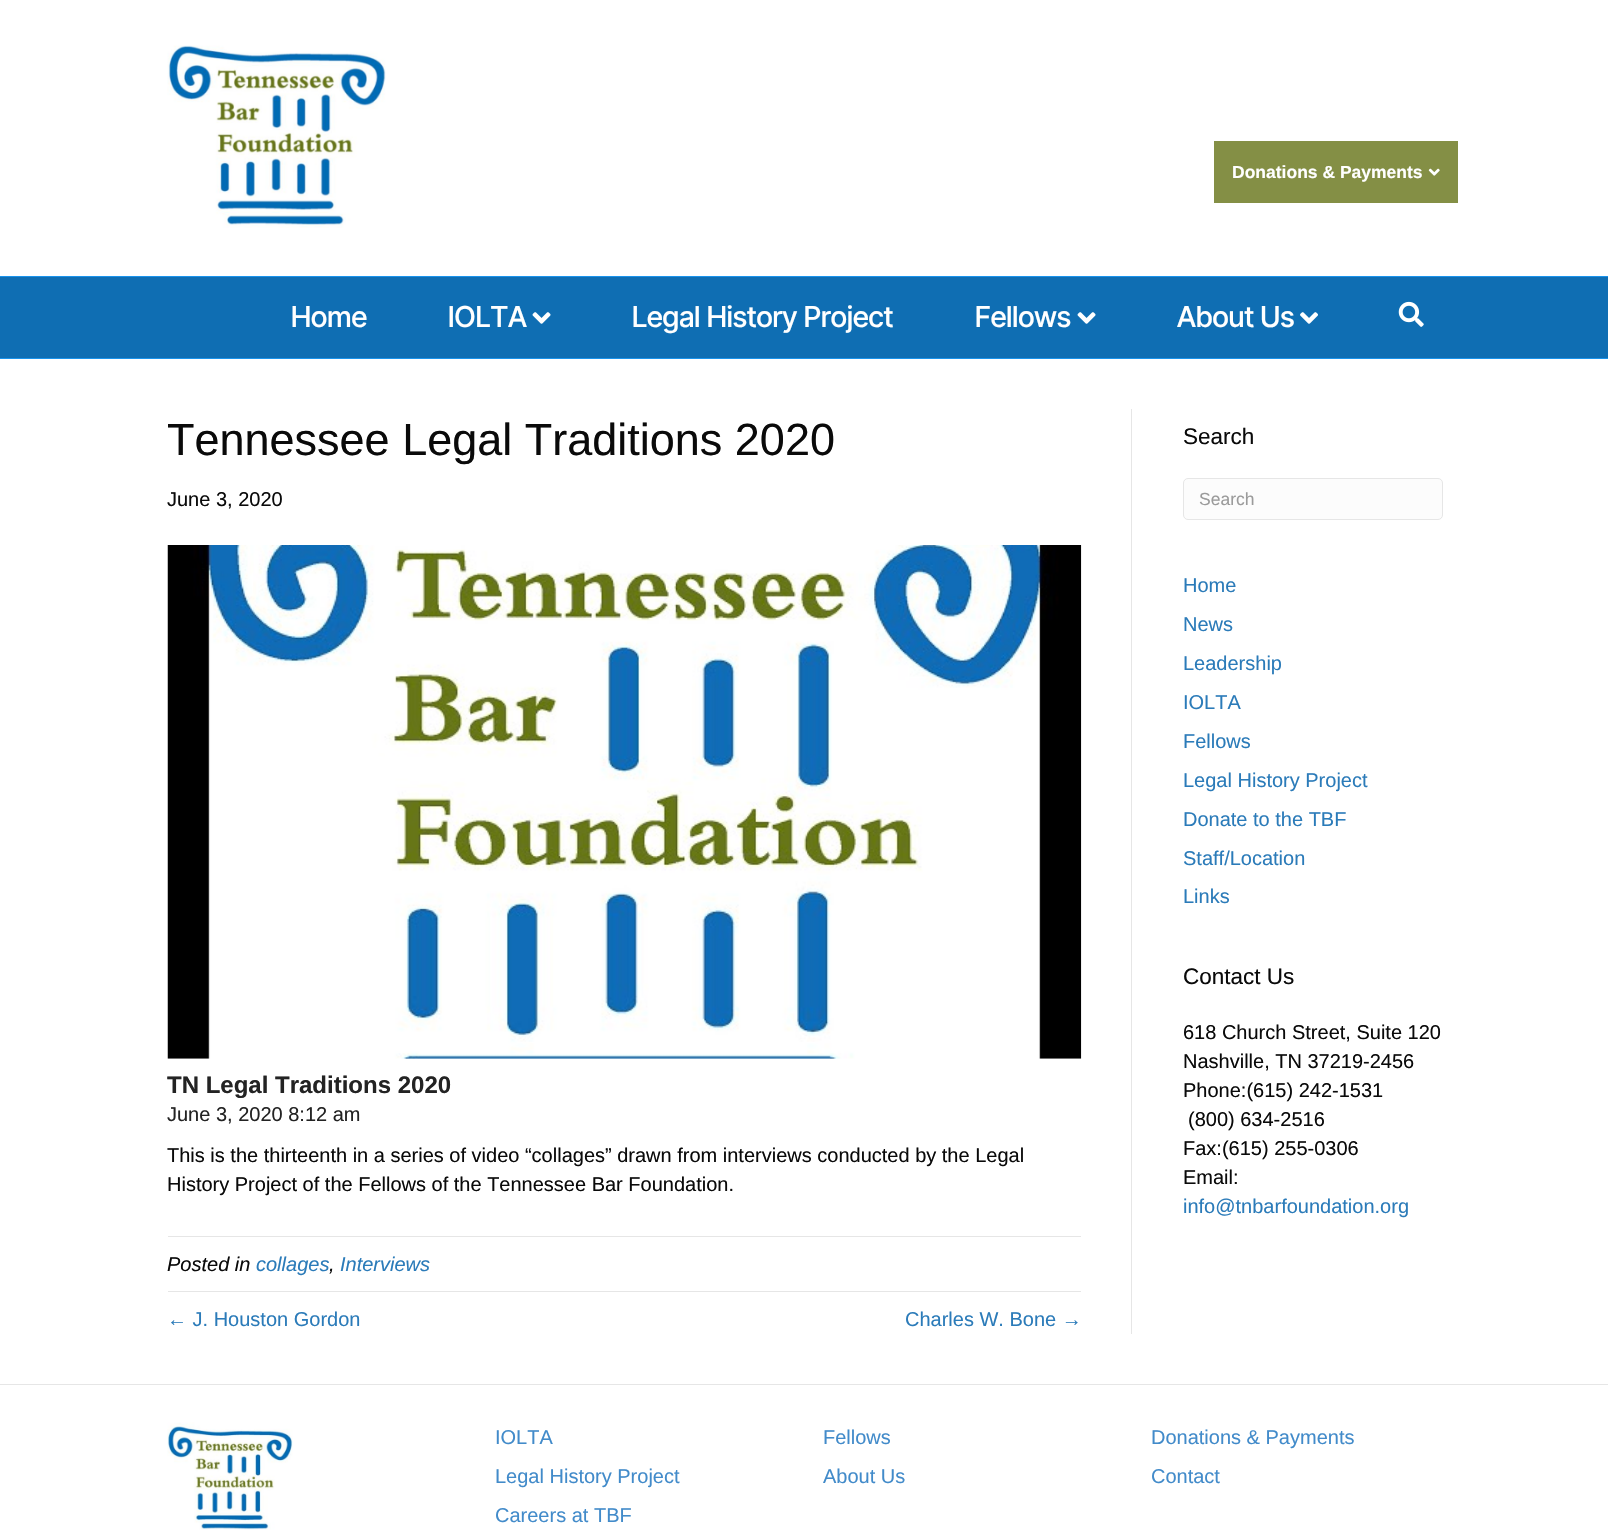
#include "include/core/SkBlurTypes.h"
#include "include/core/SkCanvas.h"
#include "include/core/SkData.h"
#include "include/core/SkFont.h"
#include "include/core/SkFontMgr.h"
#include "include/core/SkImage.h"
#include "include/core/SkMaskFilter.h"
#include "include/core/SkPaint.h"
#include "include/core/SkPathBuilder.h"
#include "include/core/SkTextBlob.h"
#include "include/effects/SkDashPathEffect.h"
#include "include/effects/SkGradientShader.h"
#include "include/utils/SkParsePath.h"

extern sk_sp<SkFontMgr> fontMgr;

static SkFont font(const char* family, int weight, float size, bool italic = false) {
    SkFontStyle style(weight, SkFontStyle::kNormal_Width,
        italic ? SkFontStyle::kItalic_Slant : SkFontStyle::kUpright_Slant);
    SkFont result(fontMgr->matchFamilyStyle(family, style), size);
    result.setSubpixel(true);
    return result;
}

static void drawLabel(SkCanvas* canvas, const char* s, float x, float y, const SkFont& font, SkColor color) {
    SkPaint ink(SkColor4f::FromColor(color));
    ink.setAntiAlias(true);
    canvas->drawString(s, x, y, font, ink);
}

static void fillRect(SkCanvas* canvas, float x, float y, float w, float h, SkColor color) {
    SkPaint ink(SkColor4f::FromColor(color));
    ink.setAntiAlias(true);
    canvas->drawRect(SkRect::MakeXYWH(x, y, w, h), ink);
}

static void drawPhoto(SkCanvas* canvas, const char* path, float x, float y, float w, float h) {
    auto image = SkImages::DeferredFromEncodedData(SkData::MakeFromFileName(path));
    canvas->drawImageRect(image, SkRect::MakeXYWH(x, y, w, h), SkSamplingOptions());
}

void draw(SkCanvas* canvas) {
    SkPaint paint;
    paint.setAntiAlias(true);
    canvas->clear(0xFFFFFFFF);
    paint.setStroke(true);
    paint.setStrokeWidth(3);
    paint.setColor(0xFF848F45);
    canvas->drawRect(SkRect::MakeXYWH(1215.5f, 142.5f, 241, 59), paint);
    fillRect(canvas, 1217, 144, 238, 56, 0xFF848F45);
    SkFont font1 = font("Liberation Sans", 700, 17.5f);
    drawLabel(canvas, "Donations & Payments", 1232, 178, font1, 0xFFFFFFFF);
    drawPhoto(canvas, "assets/img1.png", 1428, 168, 12, 8);
    drawPhoto(canvas, "assets/img2.png", 167, 45, 219, 183);
    fillRect(canvas, 0, 277, 1608, 81, 0xFF0F6EB3);
    fillRect(canvas, 0, 276, 1608, 1, 0xFF1993EC);
    fillRect(canvas, 0, 358, 1608, 1, 0xFF1993EC);
    SkFont font2 = font("Inter Tight", 500, 28.75f);
    drawLabel(canvas, "Home", 291, 327, font2, 0xFFFFFFFF);
    drawLabel(canvas, "IOLTA", 448, 327, font2, 0xFFFFFFFF);
    drawPhoto(canvas, "assets/img3.png", 532, 312, 19, 12);
    drawLabel(canvas, "Legal History Project", 632, 327, font2, 0xFFFFFFFF);
    drawLabel(canvas, "Fellows", 975, 327, font2, 0xFFFFFFFF);
    drawPhoto(canvas, "assets/img3.png", 1077, 312, 19, 12);
    drawLabel(canvas, "About Us", 1177, 327, font2, 0xFFFFFFFF);
    drawPhoto(canvas, "assets/img4.png", 1300, 312, 18, 12);
    drawPhoto(canvas, "assets/img5.png", 1398, 301, 26, 26);
    fillRect(canvas, 1131, 409, 1, 925, 0xFFE6E6E6);
    SkFont font3 = font("Liberation Sans", 400, 45);
    drawLabel(canvas, "Tennessee Legal Traditions 2020", 167, 455, font3, 0xFF0A0A0A);
    SkFont font4 = font("Liberation Sans", 400, 20);
    drawLabel(canvas, "June 3, 2020", 167, 506, font4, 0xFF0A0A0A);
    drawPhoto(canvas, "assets/img6.png", 167, 545, 915, 514);
    SkFont font5 = font("Liberation Sans", 700, 24);
    drawLabel(canvas, "TN Legal Traditions 2020", 167, 1093, font5, 0xFF232323);
    drawLabel(canvas, "June 3, 2020 8:12 am", 167, 1121, font4, 0xFF232323);
    drawLabel(canvas, "This is the thirteenth in a series of video “collages” drawn from interviews conducted by the Legal", 167, 1162, font4, 0xFF0A0A0A);
    drawLabel(canvas, "History Project of the Fellows of the Tennessee Bar Foundation.", 167, 1191, font4, 0xFF0A0A0A);
    fillRect(canvas, 168, 1236, 913, 1, 0xFFE6E6E6);
    SkFont font6 = font("Liberation Sans", 400, 20, true);
    drawLabel(canvas, "Posted in", 167, 1271, font6, 0xFF0A0A0A);
    drawLabel(canvas, "collages", 256, 1271, font6, 0xFF2B7BB9);
    drawLabel(canvas, ",", 329, 1271, font6, 0xFF0A0A0A);
    drawLabel(canvas, "Interviews", 340, 1271, font6, 0xFF2B7BB9);
    fillRect(canvas, 168, 1291, 913, 1, 0xFFE6E6E6);
    drawLabel(canvas, "← J. Houston Gordon", 167, 1326, font4, 0xFF2B7BB9);
    drawLabel(canvas, "Charles W. Bone →", 905, 1326, font4, 0xFF2B7BB9);
    SkFont font7 = font("Liberation Sans", 400, 22.5f);
    drawLabel(canvas, "Search", 1183, 444, font7, 0xFF0A0A0A);
    paint.setStroke(false);
    paint.setColor(0xFFFCFCFC);
    canvas->drawRoundRect(SkRect::MakeXYWH(1183.5f, 478.5f, 259, 41), 4.5f, 4.5f, paint);
    paint.setStroke(true);
    paint.setStrokeWidth(1);
    paint.setColor(0xFFE6E6E6);
    canvas->drawRoundRect(SkRect::MakeXYWH(1183.5f, 478.5f, 259, 41), 4.5f, 4.5f, paint);
    SkFont font8 = font("Liberation Sans", 400, 17.5f);
    drawLabel(canvas, "Search", 1199, 505, font8, 0xFF9B9B9B);
    drawLabel(canvas, "Home", 1183, 592, font4, 0xFF2B7BB9);
    drawLabel(canvas, "News", 1183, 631, font4, 0xFF2B7BB9);
    drawLabel(canvas, "Leadership", 1183, 670, font4, 0xFF2B7BB9);
    drawLabel(canvas, "IOLTA", 1183, 709, font4, 0xFF2B7BB9);
    drawLabel(canvas, "Fellows", 1183, 748, font4, 0xFF2B7BB9);
    drawLabel(canvas, "Legal History Project", 1183, 787, font4, 0xFF2B7BB9);
    drawLabel(canvas, "Donate to the TBF", 1183, 826, font4, 0xFF2B7BB9);
    drawLabel(canvas, "Staff/Location", 1183, 865, font4, 0xFF2B7BB9);
    drawLabel(canvas, "Links", 1183, 903, font4, 0xFF2B7BB9);
    drawLabel(canvas, "Contact Us", 1183, 984, font7, 0xFF0A0A0A);
    drawLabel(canvas, "618 Church Street, Suite 120", 1183, 1039, font4, 0xFF0A0A0A);
    drawLabel(canvas, "Nashville, TN 37219-2456", 1183, 1068, font4, 0xFF0A0A0A);
    drawLabel(canvas, "Phone:(615) 242-1531", 1183, 1097, font4, 0xFF0A0A0A);
    drawLabel(canvas, "(800) 634-2516", 1188, 1126, font4, 0xFF0A0A0A);
    drawLabel(canvas, "Fax:(615) 255-0306", 1183, 1155, font4, 0xFF0A0A0A);
    drawLabel(canvas, "Email:", 1183, 1184, font4, 0xFF0A0A0A);
    drawLabel(canvas, "info@tnbarfoundation.org", 1183, 1213, font4, 0xFF2B7BB9);
    fillRect(canvas, 0, 1384, 1608, 1, 0xFFE6E6E6);
    drawPhoto(canvas, "assets/img7.png", 167, 1422, 126, 108);
    drawLabel(canvas, "IOLTA", 495, 1444, font4, 0xFF428BCA);
    drawLabel(canvas, "Legal History Project", 495, 1483, font4, 0xFF428BCA);
    drawLabel(canvas, "Careers at TBF", 495, 1522, font4, 0xFF428BCA);
    drawLabel(canvas, "Fellows", 823, 1444, font4, 0xFF428BCA);
    drawLabel(canvas, "About Us", 823, 1483, font4, 0xFF428BCA);
    drawLabel(canvas, "Donations & Payments", 1151, 1444, font4, 0xFF428BCA);
    drawLabel(canvas, "Contact", 1151, 1483, font4, 0xFF428BCA);
}
